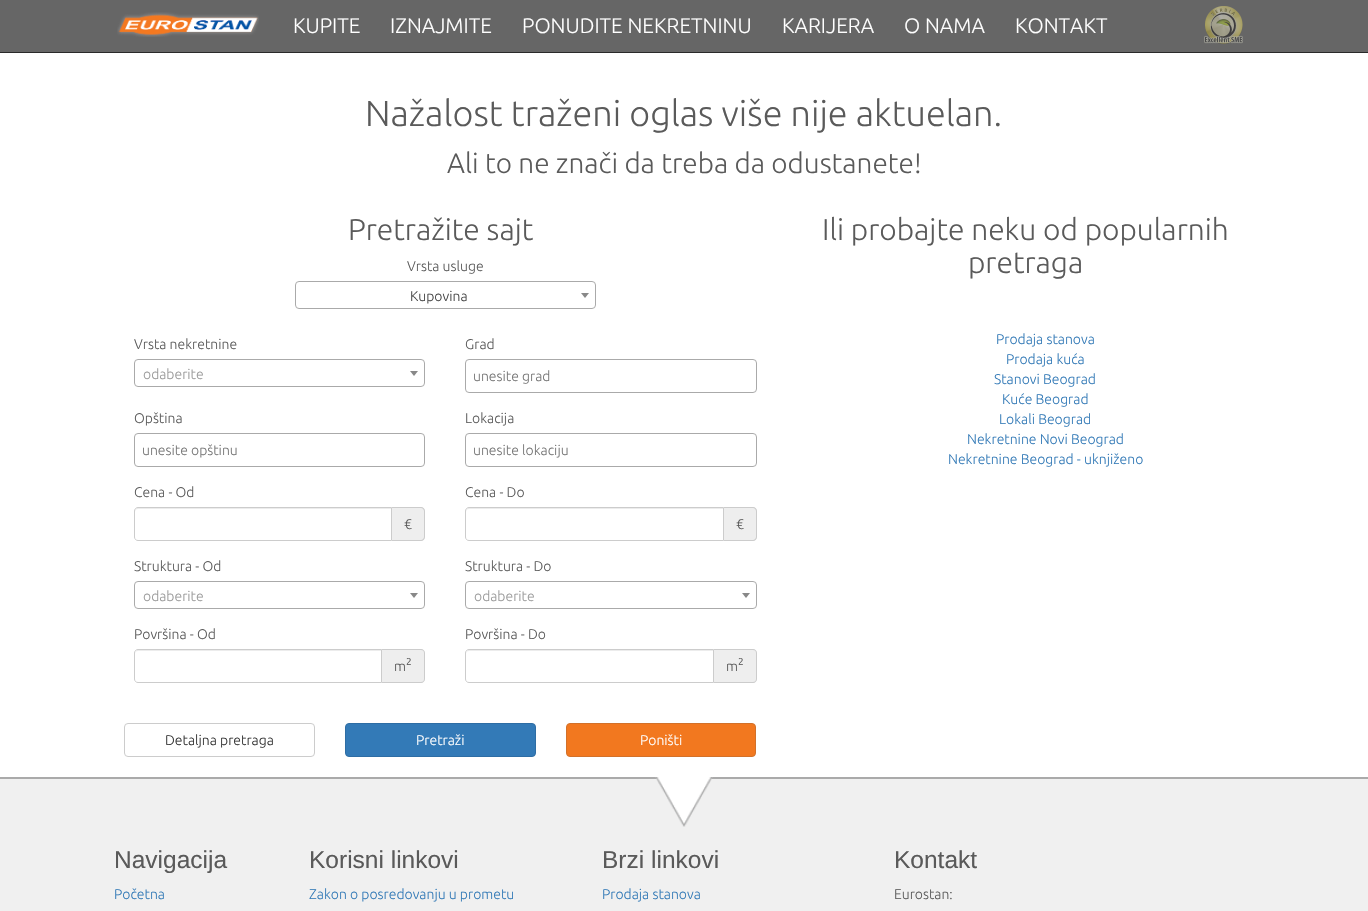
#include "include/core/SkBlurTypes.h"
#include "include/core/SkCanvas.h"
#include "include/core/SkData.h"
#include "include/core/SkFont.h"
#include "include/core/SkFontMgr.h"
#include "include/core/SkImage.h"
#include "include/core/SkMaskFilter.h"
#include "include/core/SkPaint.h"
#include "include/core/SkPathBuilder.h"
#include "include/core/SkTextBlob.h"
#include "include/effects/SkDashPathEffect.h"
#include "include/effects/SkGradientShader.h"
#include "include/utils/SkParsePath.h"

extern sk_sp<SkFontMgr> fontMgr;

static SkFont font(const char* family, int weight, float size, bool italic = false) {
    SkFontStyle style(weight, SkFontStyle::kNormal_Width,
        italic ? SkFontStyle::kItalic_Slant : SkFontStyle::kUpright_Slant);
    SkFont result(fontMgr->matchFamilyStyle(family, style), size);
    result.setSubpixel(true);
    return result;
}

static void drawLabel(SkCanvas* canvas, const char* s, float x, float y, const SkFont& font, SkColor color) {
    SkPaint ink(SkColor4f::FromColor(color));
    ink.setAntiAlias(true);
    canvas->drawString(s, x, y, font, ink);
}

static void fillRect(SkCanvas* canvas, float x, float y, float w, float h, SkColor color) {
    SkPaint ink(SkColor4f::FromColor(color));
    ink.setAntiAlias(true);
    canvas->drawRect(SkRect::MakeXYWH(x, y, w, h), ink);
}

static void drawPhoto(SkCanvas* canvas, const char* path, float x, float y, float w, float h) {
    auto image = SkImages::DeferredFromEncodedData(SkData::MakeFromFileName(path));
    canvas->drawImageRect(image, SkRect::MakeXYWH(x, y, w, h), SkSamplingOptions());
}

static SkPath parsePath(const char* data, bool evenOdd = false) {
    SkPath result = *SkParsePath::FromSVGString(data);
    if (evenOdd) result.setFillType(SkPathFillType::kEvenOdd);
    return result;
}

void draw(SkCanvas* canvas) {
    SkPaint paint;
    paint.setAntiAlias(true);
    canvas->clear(0xFFFFFFFF);
    fillRect(canvas, 0, 0, 1368, 52, 0xFF666666);
    fillRect(canvas, 0, 52, 1368, 1, 0xFF292929);
    drawPhoto(canvas, "assets/img1.png", 117, 12, 142, 25);
    SkFont font1 = font("Ubuntu", 300, 21);
    drawLabel(canvas, "KUPITE", 293, 33, font1, 0xFFFFFFFF);
    drawLabel(canvas, "IZNAJMITE", 390, 33, font1, 0xFFFFFFFF);
    drawLabel(canvas, "PONUDITE NEKRETNINU", 522, 33, font1, 0xFFFFFFFF);
    drawLabel(canvas, "KARIJERA", 782, 33, font1, 0xFFFFFFFF);
    drawLabel(canvas, "O NAMA", 904, 33, font1, 0xFFFFFFFF);
    drawLabel(canvas, "KONTAKT", 1015, 33, font1, 0xFFFFFFFF);
    drawPhoto(canvas, "assets/img2.png", 1204, 6, 39, 38);
    SkFont font2 = font("Ubuntu", 300, 36);
    drawLabel(canvas, "Nažalost traženi oglas više nije aktuelan.", 365, 126, font2, 0xFF5A5A5A);
    SkFont font3 = font("Ubuntu", 300, 28);
    drawLabel(canvas, "Ali to ne znači da treba da odustanete!", 447, 173, font3, 0xFF5A5A5A);
    SkFont font4 = font("Ubuntu", 300, 30);
    drawLabel(canvas, "Pretražite sajt", 348, 240, font4, 0xFF5A5A5A);
    SkFont font5 = font("Ubuntu", 300, 14);
    drawLabel(canvas, "Vrsta usluge", 407, 271, font5, 0xFF5A5A5A);
    paint.setStroke(true);
    paint.setStrokeWidth(1);
    paint.setColor(0xFFAAAAAA);
    canvas->drawRoundRect(SkRect::MakeXYWH(295.5f, 281.5f, 300, 27), 3.5f, 3.5f, paint);
    drawLabel(canvas, "Kupovina", 410, 301, font5, 0xFF444444);
    paint.setStroke(false);
    paint.setColor(0xFF888888);
    canvas->drawPath(parsePath("M581 293H589L585 298Z"), paint);
    drawLabel(canvas, "Vrsta nekretnine", 134, 349, font5, 0xFF5A5A5A);
    paint.setStroke(true);
    paint.setColor(0xFFAAAAAA);
    canvas->drawRoundRect(SkRect::MakeXYWH(134.5f, 359.5f, 290, 27), 3.5f, 3.5f, paint);
    drawLabel(canvas, "odaberite", 143, 379, font5, 0xFF999999);
    paint.setStroke(false);
    paint.setColor(0xFF888888);
    canvas->drawPath(parsePath("M410 371H418L414 376Z"), paint);
    drawLabel(canvas, "Grad", 465, 349, font5, 0xFF5A5A5A);
    paint.setStroke(true);
    paint.setColor(0xFFAAAAAA);
    canvas->drawRoundRect(SkRect::MakeXYWH(465.5f, 359.5f, 291, 33), 3.5f, 3.5f, paint);
    drawLabel(canvas, "unesite grad", 473, 381, font5, 0xFF757575);
    drawLabel(canvas, "Opština", 134, 423, font5, 0xFF5A5A5A);
    canvas->drawRoundRect(SkRect::MakeXYWH(134.5f, 433.5f, 290, 33), 3.5f, 3.5f, paint);
    drawLabel(canvas, "unesite opštinu", 142, 455, font5, 0xFF757575);
    drawLabel(canvas, "Lokacija", 465, 423, font5, 0xFF5A5A5A);
    canvas->drawRoundRect(SkRect::MakeXYWH(465.5f, 433.5f, 291, 33), 3.5f, 3.5f, paint);
    drawLabel(canvas, "unesite lokaciju", 473, 455, font5, 0xFF757575);
    drawLabel(canvas, "Cena - Od", 134, 497, font5, 0xFF5A5A5A);
    paint.setStroke(false);
    paint.setColor(0xFFECECEC);
    canvas->drawPath(parsePath("M138 509H391V508H138C136 508 135 509 135 511V512C135 510 136 509 138 509Z"), paint);
    paint.setStroke(true);
    paint.setColor(0xFFCCCCCC);
    canvas->drawPath(parsePath("M138 507.5H391.5V540.5H138C136 540.5 134.5 539 134.5 537V511C134.5 509 136 507.5 138 507.5Z"), paint);
    paint.setStroke(false);
    paint.setColor(0xFFEEEEEE);
    canvas->drawPath(parsePath("M392 507H421C423 507 425 509 425 511V537C425 539 423 541 421 541H392Z"), paint);
    paint.setColor(0xFFCCCCCC);
    canvas->drawPath(parsePath("M392 507H421C423 507 425 509 425 511V537C425 539 423 541 421 541H392ZM392 508H421C422.5 508 424 509.5 424 511V537C424 538.5 422.5 540 421 540H392Z", true), paint);
    drawLabel(canvas, "€", 404, 529, font5, 0xFF5A5A5A);
    drawLabel(canvas, "Cena - Do", 465, 497, font5, 0xFF5A5A5A);
    paint.setColor(0xFFECECEC);
    canvas->drawPath(parsePath("M469 509H723V508H469C467 508 466 509 466 511V512C466 510 467 509 469 509Z"), paint);
    paint.setStroke(true);
    paint.setColor(0xFFCCCCCC);
    canvas->drawPath(parsePath("M469 507.5H723.5V540.5H469C467 540.5 465.5 539 465.5 537V511C465.5 509 467 507.5 469 507.5Z"), paint);
    paint.setStroke(false);
    paint.setColor(0xFFEEEEEE);
    canvas->drawPath(parsePath("M724 507H753C755 507 757 509 757 511V537C757 539 755 541 753 541H724Z"), paint);
    paint.setColor(0xFFCCCCCC);
    canvas->drawPath(parsePath("M724 507H753C755 507 757 509 757 511V537C757 539 755 541 753 541H724ZM724 508H753C754.5 508 756 509.5 756 511V537C756 538.5 754.5 540 753 540H724Z", true), paint);
    drawLabel(canvas, "€", 736, 529, font5, 0xFF5A5A5A);
    drawLabel(canvas, "Struktura - Od", 134, 571, font5, 0xFF5A5A5A);
    paint.setStroke(true);
    paint.setColor(0xFFAAAAAA);
    canvas->drawRoundRect(SkRect::MakeXYWH(134.5f, 581.5f, 290, 27), 3.5f, 3.5f, paint);
    drawLabel(canvas, "odaberite", 143, 601, font5, 0xFF999999);
    paint.setStroke(false);
    paint.setColor(0xFF888888);
    canvas->drawPath(parsePath("M410 593H418L414 598Z"), paint);
    drawLabel(canvas, "Struktura - Do", 465, 571, font5, 0xFF5A5A5A);
    paint.setStroke(true);
    paint.setColor(0xFFAAAAAA);
    canvas->drawRoundRect(SkRect::MakeXYWH(465.5f, 581.5f, 291, 27), 3.5f, 3.5f, paint);
    drawLabel(canvas, "odaberite", 474, 601, font5, 0xFF999999);
    paint.setStroke(false);
    paint.setColor(0xFF888888);
    canvas->drawPath(parsePath("M742 593H750L746 598Z"), paint);
    drawLabel(canvas, "Površina - Od", 134, 639, font5, 0xFF5A5A5A);
    paint.setColor(0xFFECECEC);
    canvas->drawPath(parsePath("M138 651H381V650H138C136 650 135 652 135 654C135 652 136 651 138 651Z"), paint);
    paint.setStroke(true);
    paint.setColor(0xFFCCCCCC);
    canvas->drawPath(parsePath("M138 649.5H381.5V682.5H138C136 682.5 134.5 681 134.5 679V653C134.5 651 136 649.5 138 649.5Z"), paint);
    paint.setStroke(false);
    paint.setColor(0xFFEEEEEE);
    canvas->drawPath(parsePath("M382 649H421C423 649 425 651 425 653V679C425 681 423 683 421 683H382Z"), paint);
    paint.setColor(0xFFCCCCCC);
    canvas->drawPath(parsePath("M382 649H421C423 649 425 651 425 653V679C425 681 423 683 421 683H382ZM382 650H421C423 650 424 651 424 653V679C424 681 423 682 421 682H382Z", true), paint);
    SkFont font6 = font("Ubuntu", 400, 10);
    drawLabel(canvas, "2", 406, 665, font6, 0xFF5A5A5A);
    drawLabel(canvas, "m", 394, 671, font5, 0xFF5A5A5A);
    drawLabel(canvas, "Površina - Do", 465, 639, font5, 0xFF5A5A5A);
    paint.setColor(0xFFECECEC);
    canvas->drawPath(parsePath("M469 651H713V650H469C467 650 466 652 466 654C466 652 467 651 469 651Z"), paint);
    paint.setStroke(true);
    paint.setColor(0xFFCCCCCC);
    canvas->drawPath(parsePath("M469 649.5H713.5V682.5H469C467 682.5 465.5 681 465.5 679V653C465.5 651 467 649.5 469 649.5Z"), paint);
    paint.setStroke(false);
    paint.setColor(0xFFEEEEEE);
    canvas->drawPath(parsePath("M714 649H753C755 649 757 651 757 653V679C757 681 755 683 753 683H714Z"), paint);
    paint.setColor(0xFFCCCCCC);
    canvas->drawPath(parsePath("M714 649H753C755 649 757 651 757 653V679C757 681 755 683 753 683H714ZM714 650H753C755 650 756 651 756 653V679C756 681 755 682 753 682H714Z", true), paint);
    drawLabel(canvas, "2", 738, 665, font6, 0xFF5A5A5A);
    drawLabel(canvas, "m", 726, 671, font5, 0xFF5A5A5A);
    paint.setStroke(true);
    canvas->drawRoundRect(SkRect::MakeXYWH(124.5f, 723.5f, 190, 33), 3.5f, 3.5f, paint);
    drawLabel(canvas, "Detaljna pretraga", 165, 745, font5, 0xFF333333);
    paint.setStroke(false);
    paint.setColor(0xFF337AB7);
    canvas->drawRoundRect(SkRect::MakeXYWH(345.5f, 723.5f, 190, 33), 3.5f, 3.5f, paint);
    paint.setStroke(true);
    paint.setColor(0xFF2E6DA4);
    canvas->drawRoundRect(SkRect::MakeXYWH(345.5f, 723.5f, 190, 33), 3.5f, 3.5f, paint);
    drawLabel(canvas, "Pretraži", 416, 745, font5, 0xFFFFFFFF);
    paint.setStroke(false);
    paint.setColor(0xFFF2781F);
    canvas->drawRoundRect(SkRect::MakeXYWH(566.5f, 723.5f, 189, 33), 3.5f, 3.5f, paint);
    paint.setStroke(true);
    paint.setColor(0xFFD2712A);
    canvas->drawRoundRect(SkRect::MakeXYWH(566.5f, 723.5f, 189, 33), 3.5f, 3.5f, paint);
    drawLabel(canvas, "Poništi", 640, 745, font5, 0xFFFFFFFF);
    drawLabel(canvas, "Ili probajte neku od popularnih", 822, 240, font4, 0xFF5A5A5A);
    drawLabel(canvas, "pretraga", 968, 273, font4, 0xFF5A5A5A);
    drawLabel(canvas, "Prodaja stanova", 996, 344, font5, 0xFF337AB7);
    drawLabel(canvas, "Prodaja kuća", 1006, 364, font5, 0xFF337AB7);
    drawLabel(canvas, "Stanovi Beograd", 994, 384, font5, 0xFF337AB7);
    drawLabel(canvas, "Kuće Beograd", 1002, 404, font5, 0xFF337AB7);
    drawLabel(canvas, "Lokali Beograd", 999, 424, font5, 0xFF337AB7);
    drawLabel(canvas, "Nekretnine Novi Beograd", 967, 444, font5, 0xFF337AB7);
    drawLabel(canvas, "Nekretnine Beograd - uknjiženo", 948, 464, font5, 0xFF337AB7);
    fillRect(canvas, 0, 779, 1368, 132, 0xFFF0F0F0);
    fillRect(canvas, 0, 777, 1368, 2, 0xFFAAAAAA);
    drawPhoto(canvas, "assets/img3.png", 655, 777, 58, 50);
    SkFont font7 = font("Liberation Sans", 400, 24.5f);
    drawLabel(canvas, "Navigacija", 114, 868, font7, 0xFF5A5A5A);
    drawLabel(canvas, "Početna", 114, 899, font5, 0xFF337AB7);
    drawLabel(canvas, "Korisni linkovi", 309, 868, font7, 0xFF5A5A5A);
    drawLabel(canvas, "Zakon o posredovanju u prometu", 309, 899, font5, 0xFF337AB7);
    drawLabel(canvas, "Brzi linkovi", 602, 868, font7, 0xFF5A5A5A);
    drawLabel(canvas, "Prodaja stanova", 602, 899, font5, 0xFF337AB7);
    drawLabel(canvas, "Kontakt", 894, 868, font7, 0xFF5A5A5A);
    drawLabel(canvas, "Eurostan:", 894, 899, font5, 0xFF5A5A5A);
}
